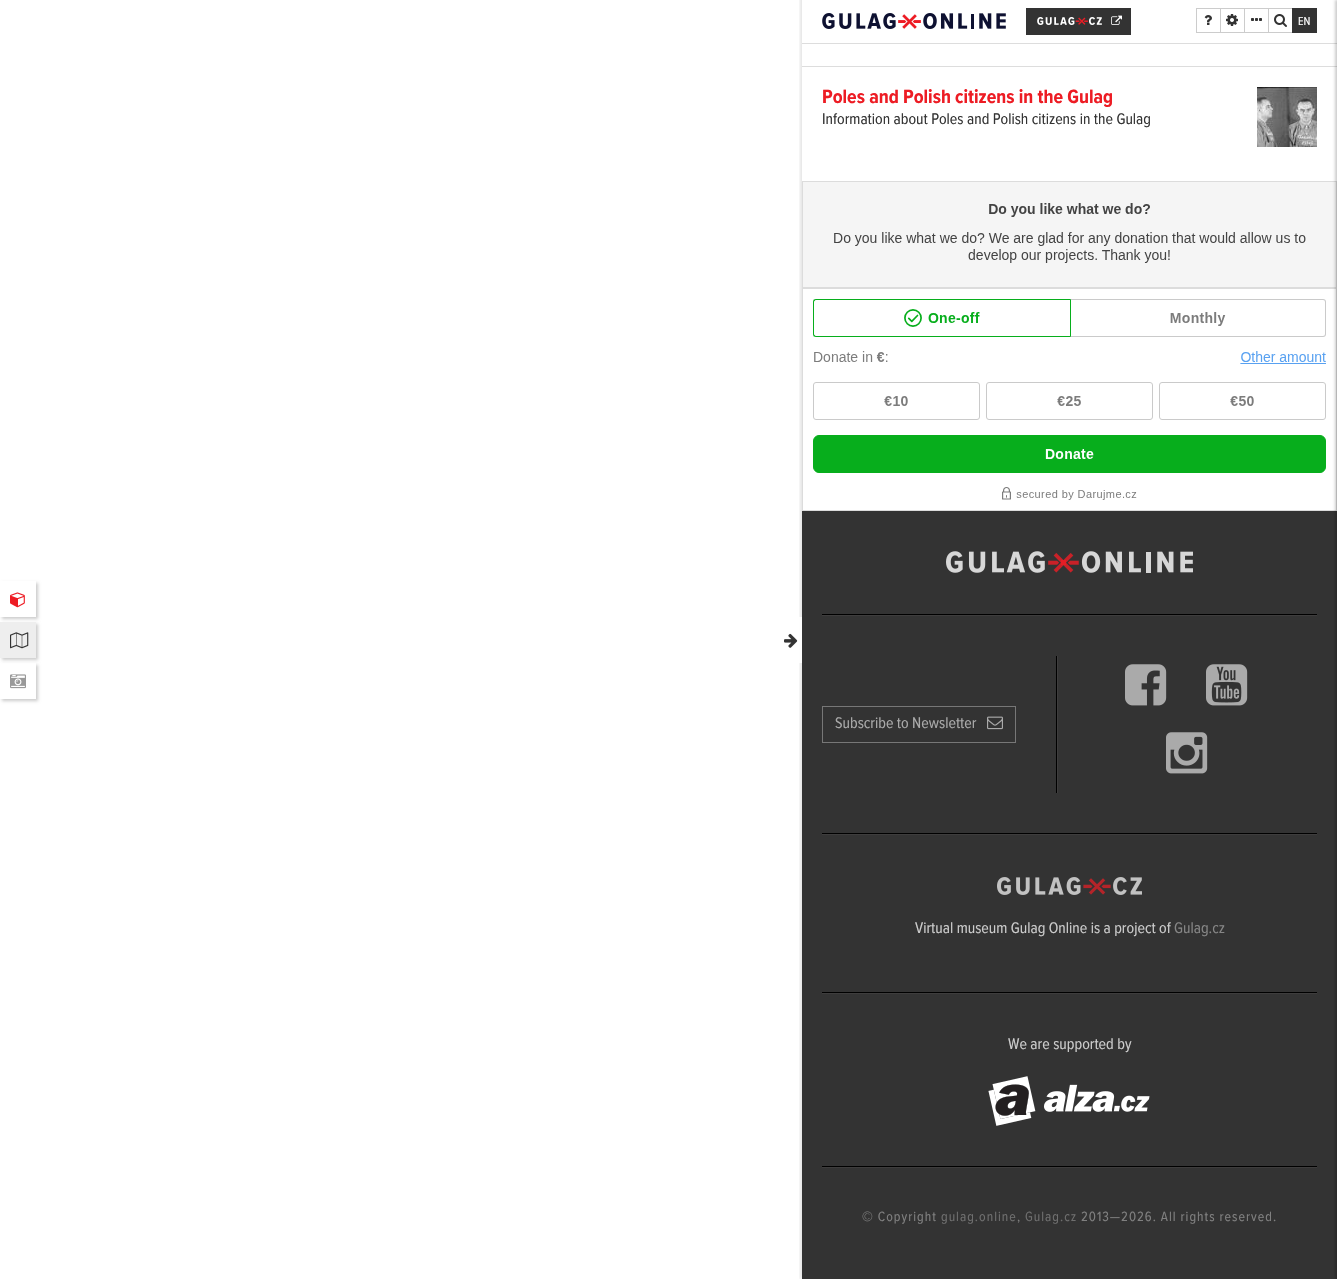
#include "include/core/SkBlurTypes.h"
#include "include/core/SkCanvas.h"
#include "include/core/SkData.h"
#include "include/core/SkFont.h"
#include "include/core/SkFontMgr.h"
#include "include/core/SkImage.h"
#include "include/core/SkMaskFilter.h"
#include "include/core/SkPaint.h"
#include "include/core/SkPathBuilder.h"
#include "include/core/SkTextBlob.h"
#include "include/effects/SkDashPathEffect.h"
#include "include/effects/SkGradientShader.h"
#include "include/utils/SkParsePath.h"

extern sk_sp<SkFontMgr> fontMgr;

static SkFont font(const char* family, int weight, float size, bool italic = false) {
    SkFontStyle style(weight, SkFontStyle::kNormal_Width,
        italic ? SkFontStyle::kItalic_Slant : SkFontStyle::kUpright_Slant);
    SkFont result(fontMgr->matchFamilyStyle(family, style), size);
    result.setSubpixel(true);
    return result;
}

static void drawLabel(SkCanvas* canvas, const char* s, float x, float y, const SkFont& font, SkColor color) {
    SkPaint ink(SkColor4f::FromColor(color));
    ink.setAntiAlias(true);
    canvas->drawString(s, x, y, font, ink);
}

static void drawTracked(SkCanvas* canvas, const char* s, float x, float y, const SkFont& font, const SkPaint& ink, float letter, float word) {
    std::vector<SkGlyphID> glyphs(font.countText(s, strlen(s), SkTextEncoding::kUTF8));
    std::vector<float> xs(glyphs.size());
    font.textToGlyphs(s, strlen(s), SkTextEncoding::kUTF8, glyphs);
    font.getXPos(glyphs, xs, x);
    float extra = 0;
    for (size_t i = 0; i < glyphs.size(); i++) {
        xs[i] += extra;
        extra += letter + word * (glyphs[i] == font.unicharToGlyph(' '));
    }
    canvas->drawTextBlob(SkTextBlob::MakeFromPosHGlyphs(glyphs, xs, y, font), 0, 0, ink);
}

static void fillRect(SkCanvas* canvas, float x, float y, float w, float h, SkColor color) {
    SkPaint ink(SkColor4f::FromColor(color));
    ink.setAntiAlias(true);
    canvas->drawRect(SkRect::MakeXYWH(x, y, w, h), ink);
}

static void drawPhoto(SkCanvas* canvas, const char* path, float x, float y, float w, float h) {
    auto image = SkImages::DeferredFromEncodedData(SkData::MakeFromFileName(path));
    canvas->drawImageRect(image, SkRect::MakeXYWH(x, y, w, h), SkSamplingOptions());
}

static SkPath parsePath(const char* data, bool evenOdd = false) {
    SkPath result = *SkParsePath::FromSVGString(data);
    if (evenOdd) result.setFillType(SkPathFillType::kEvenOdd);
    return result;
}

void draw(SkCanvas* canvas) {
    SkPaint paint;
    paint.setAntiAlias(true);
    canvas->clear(0xFFFFFFFF);
    canvas->save();
    canvas->clipPath(parsePath("M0 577H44V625H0ZM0 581H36V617H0Z", true), true);
    paint.setColor(0x33000000);
    paint.setMaskFilter(SkMaskFilter::MakeBlur(kNormal_SkBlurStyle, 1.5f));
    canvas->drawRect(SkRect::MakeXYWH(2, 583, 36, 36), paint);
    paint.setMaskFilter(nullptr);
    canvas->restore();
    drawPhoto(canvas, "assets/img1.png", 10, 592, 15, 16);
    paint.setMaskFilter(SkMaskFilter::MakeBlur(kNormal_SkBlurStyle, 1.5f));
    canvas->drawRect(SkRect::MakeXYWH(2, 624, 36, 36), paint);
    paint.setMaskFilter(nullptr);
    fillRect(canvas, 0, 622, 36, 36, 0xFFEEEEEE);
    drawPhoto(canvas, "assets/img2.png", 10, 632, 19, 17);
    canvas->save();
    canvas->clipPath(parsePath("M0 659H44V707H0ZM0 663H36V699H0Z", true), true);
    paint.setMaskFilter(SkMaskFilter::MakeBlur(kNormal_SkBlurStyle, 1.5f));
    canvas->drawRect(SkRect::MakeXYWH(2, 665, 36, 36), paint);
    paint.setMaskFilter(nullptr);
    canvas->restore();
    drawPhoto(canvas, "assets/img3.png", 10, 674, 16, 15);
    canvas->save();
    canvas->clipRect(SkRect::MakeXYWH(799, 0, 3, 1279));
    paint.setColor(0x1A000000);
    paint.setMaskFilter(SkMaskFilter::MakeBlur(kNormal_SkBlurStyle, 1.5f));
    canvas->drawRect(SkRect::MakeXYWH(800, -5, 535, 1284), paint);
    paint.setMaskFilter(nullptr);
    canvas->restore();
    fillRect(canvas, 802, 43, 535, 1, 0xFFDDDDDD);
    drawPhoto(canvas, "assets/img4.png", 822, 13, 184, 16);
    fillRect(canvas, 1026, 8, 105, 27, 0xFF333333);
    drawPhoto(canvas, "assets/img5.png", 1037, 17, 65, 8);
    drawPhoto(canvas, "assets/img6.png", 1111, 15, 11, 10);
    paint.setStroke(true);
    paint.setStrokeWidth(1);
    paint.setColor(0xFFCCCCCC);
    canvas->drawRect(SkRect::MakeXYWH(1196.5f, 8.5f, 24, 24), paint);
    drawPhoto(canvas, "assets/img7.png", 1204, 15, 8, 10);
    canvas->drawRect(SkRect::MakeXYWH(1220.5f, 8.5f, 24, 24), paint);
    drawPhoto(canvas, "assets/img8.png", 1226, 14, 12, 12);
    canvas->drawRect(SkRect::MakeXYWH(1244.5f, 8.5f, 24, 24), paint);
    drawPhoto(canvas, "assets/img9.png", 1251, 18, 11, 3);
    canvas->drawRect(SkRect::MakeXYWH(1268.5f, 8.5f, 24, 24), paint);
    drawPhoto(canvas, "assets/img10.png", 1274, 14, 13, 13);
    fillRect(canvas, 1292, 8, 25, 25, 0xFF333333);
    SkFont font1 = font("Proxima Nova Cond", 400, 12);
    drawLabel(canvas, "EN", 1298, 25, font1, 0xFFFFFFFF);
    fillRect(canvas, 802, 66, 535, 1, 0xFFDDDDDD);
    SkFont font2 = font("Proxima Nova Cond", 700, 20);
    drawLabel(canvas, "Poles and Polish citizens in the Gulag", 822, 103, font2, 0xFFED1C24);
    drawPhoto(canvas, "assets/img11.png", 1257, 87, 60, 60);
    SkFont font3 = font("Proxima Nova Cond", 400, 16);
    drawLabel(canvas, "Information about Poles and Polish citizens in the Gulag", 822, 124, font3, 0xFF333333);
    paint.setColor(0xFFDCDCDC);
    canvas->drawRect(SkRect::MakeXYWH(802.5f, 181.5f, 534, 329), paint);
    drawPhoto(canvas, "assets/img12.png", 803, 182, 533, 328);
    fillRect(canvas, 798, 617, 4, 46, 0xE6FFFFFF);
    drawPhoto(canvas, "assets/img13.png", 784, 633, 14, 15);
    fillRect(canvas, 802, 511, 535, 768, 0xFF333333);
    drawPhoto(canvas, "assets/img14.png", 946, 551, 247, 22);
    fillRect(canvas, 822, 614, 495, 1, 0xFF000000);
    fillRect(canvas, 822, 615, 495, 1, 0xFF3E3D3D);
    paint.setColor(0xFF777777);
    canvas->drawRect(SkRect::MakeXYWH(822.5f, 706.5f, 193, 36), paint);
    drawLabel(canvas, "Subscribe to Newsletter", 835, 728, font3, 0xFFAAAAAA);
    drawPhoto(canvas, "assets/img15.png", 987, 716, 16, 14);
    fillRect(canvas, 1057, 656, 1, 137, 0xFF3E3D3D);
    fillRect(canvas, 1056, 656, 1, 137, 0xFF000000);
    drawPhoto(canvas, "assets/img16.png", 1125, 664, 42, 42);
    drawPhoto(canvas, "assets/img17.png", 1206, 664, 42, 42);
    drawPhoto(canvas, "assets/img18.png", 1166, 732, 42, 42);
    fillRect(canvas, 822, 833, 495, 1, 0xFF000000);
    fillRect(canvas, 822, 834, 495, 1, 0xFF3E3D3D);
    drawPhoto(canvas, "assets/img19.png", 997, 877, 145, 18);
    drawLabel(canvas, "Virtual museum Gulag Online is a project of", 915, 933, font3, 0xFFCCCCCC);
    drawLabel(canvas, "Gulag.cz", 1174, 933, font3, 0xFF868686);
    fillRect(canvas, 822, 992, 495, 1, 0xFF000000);
    fillRect(canvas, 822, 993, 495, 1, 0xFF3E3D3D);
    drawLabel(canvas, "We are supported by", 1008, 1049, font3, 0xFFCCCCCC);
    drawPhoto(canvas, "assets/img20.png", 988, 1076, 162, 50);
    fillRect(canvas, 822, 1166, 495, 1, 0xFF000000);
    fillRect(canvas, 822, 1167, 495, 1, 0xFF3E3D3D);
    SkFont font4 = font("Proxima Nova Cond", 400, 13.9f);
    paint.setStroke(false);
    paint.setColor(0xFF808080);
    drawTracked(canvas, "© Copyright", 862, 1221, font4, paint, 1, 0);
    paint.setColor(0xFF6F6F6F);
    drawTracked(canvas, "gulag.online", 941, 1221, font4, paint, 1, 0);
    paint.setColor(0xFF808080);
    drawTracked(canvas, ",", 1017, 1221, font4, paint, 1, 0);
    paint.setColor(0xFF6F6F6F);
    drawTracked(canvas, "Gulag.cz", 1025, 1221, font4, paint, 1, 0);
    paint.setColor(0xFF808080);
    drawTracked(canvas, "2013—2026. All rights reserved.", 1081, 1221, font4, paint, 1, 0);
    paint.setColor(0x33000000);
    paint.setMaskFilter(SkMaskFilter::MakeBlur(kNormal_SkBlurStyle, 1.5f));
    canvas->drawRect(SkRect::MakeXYWH(1335, 0, 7, 1279), paint);
    paint.setMaskFilter(nullptr);
}
